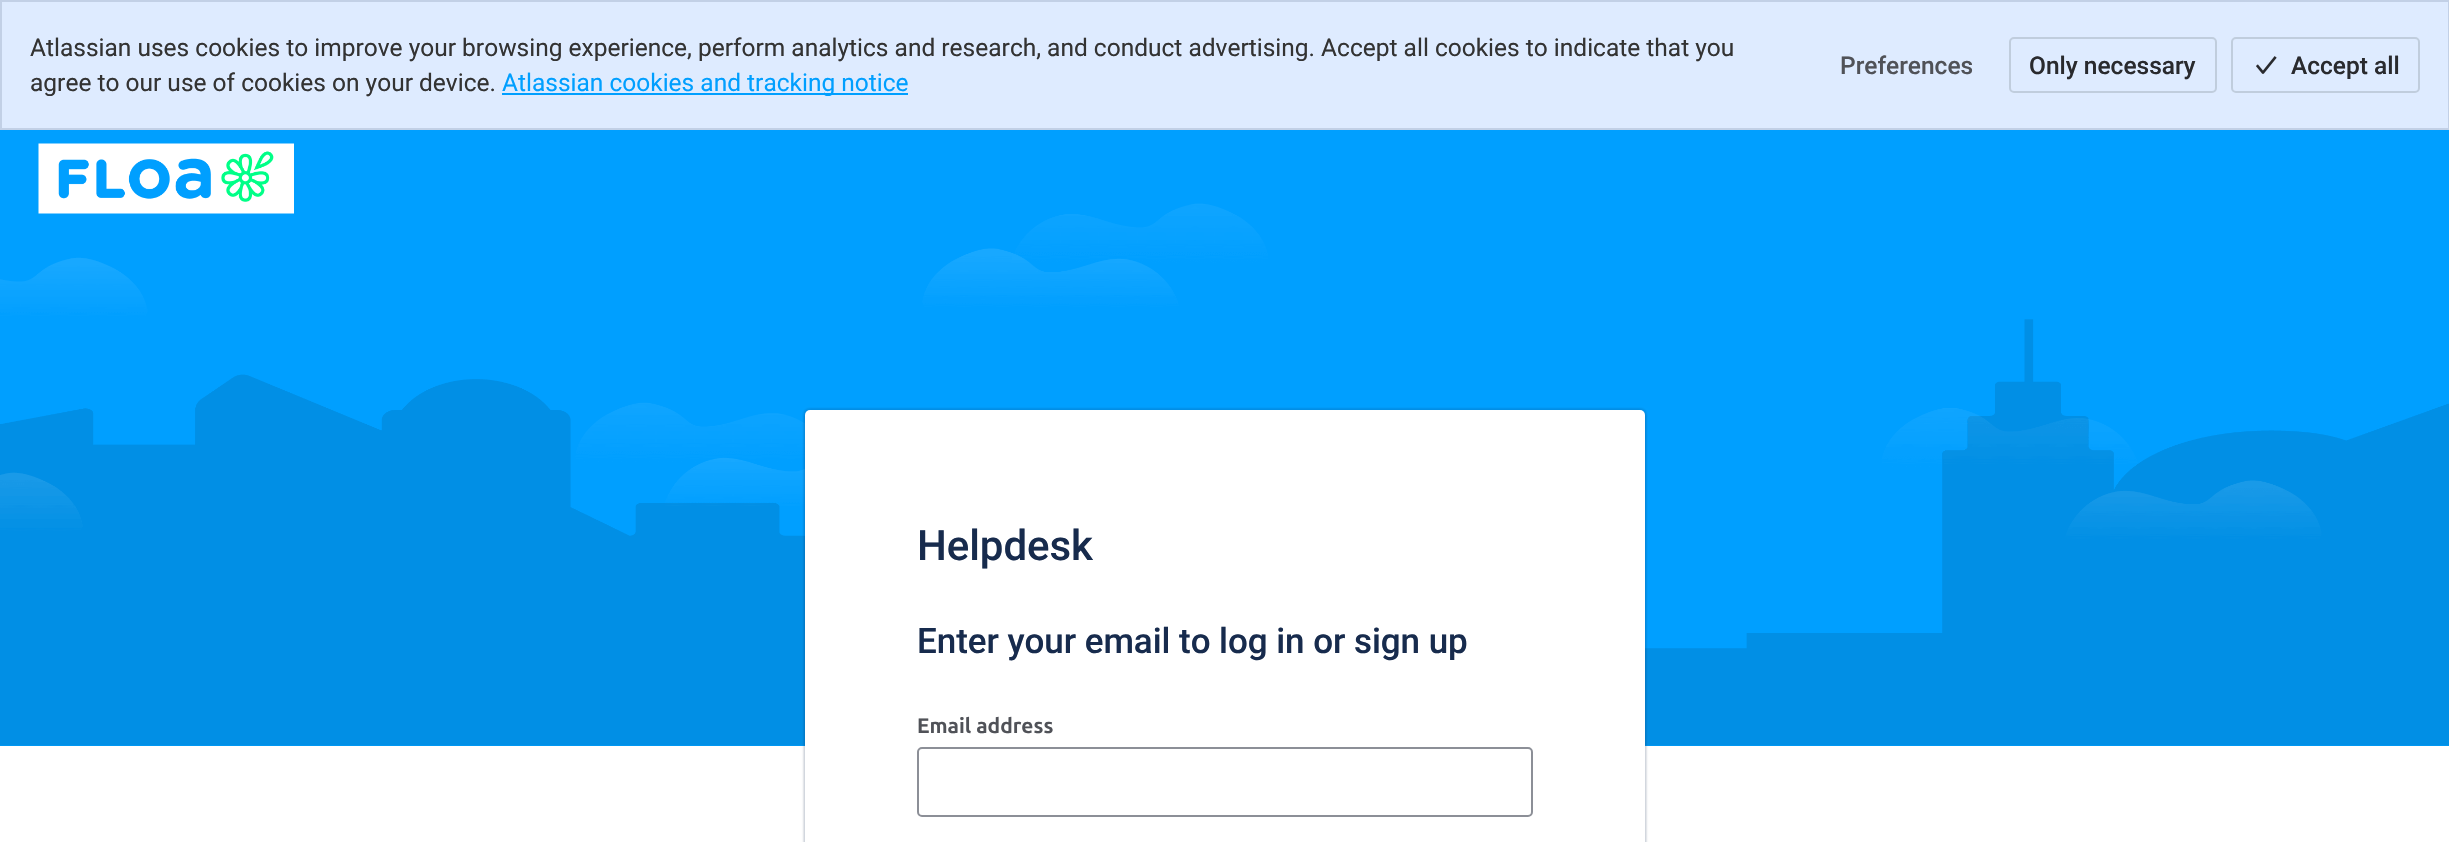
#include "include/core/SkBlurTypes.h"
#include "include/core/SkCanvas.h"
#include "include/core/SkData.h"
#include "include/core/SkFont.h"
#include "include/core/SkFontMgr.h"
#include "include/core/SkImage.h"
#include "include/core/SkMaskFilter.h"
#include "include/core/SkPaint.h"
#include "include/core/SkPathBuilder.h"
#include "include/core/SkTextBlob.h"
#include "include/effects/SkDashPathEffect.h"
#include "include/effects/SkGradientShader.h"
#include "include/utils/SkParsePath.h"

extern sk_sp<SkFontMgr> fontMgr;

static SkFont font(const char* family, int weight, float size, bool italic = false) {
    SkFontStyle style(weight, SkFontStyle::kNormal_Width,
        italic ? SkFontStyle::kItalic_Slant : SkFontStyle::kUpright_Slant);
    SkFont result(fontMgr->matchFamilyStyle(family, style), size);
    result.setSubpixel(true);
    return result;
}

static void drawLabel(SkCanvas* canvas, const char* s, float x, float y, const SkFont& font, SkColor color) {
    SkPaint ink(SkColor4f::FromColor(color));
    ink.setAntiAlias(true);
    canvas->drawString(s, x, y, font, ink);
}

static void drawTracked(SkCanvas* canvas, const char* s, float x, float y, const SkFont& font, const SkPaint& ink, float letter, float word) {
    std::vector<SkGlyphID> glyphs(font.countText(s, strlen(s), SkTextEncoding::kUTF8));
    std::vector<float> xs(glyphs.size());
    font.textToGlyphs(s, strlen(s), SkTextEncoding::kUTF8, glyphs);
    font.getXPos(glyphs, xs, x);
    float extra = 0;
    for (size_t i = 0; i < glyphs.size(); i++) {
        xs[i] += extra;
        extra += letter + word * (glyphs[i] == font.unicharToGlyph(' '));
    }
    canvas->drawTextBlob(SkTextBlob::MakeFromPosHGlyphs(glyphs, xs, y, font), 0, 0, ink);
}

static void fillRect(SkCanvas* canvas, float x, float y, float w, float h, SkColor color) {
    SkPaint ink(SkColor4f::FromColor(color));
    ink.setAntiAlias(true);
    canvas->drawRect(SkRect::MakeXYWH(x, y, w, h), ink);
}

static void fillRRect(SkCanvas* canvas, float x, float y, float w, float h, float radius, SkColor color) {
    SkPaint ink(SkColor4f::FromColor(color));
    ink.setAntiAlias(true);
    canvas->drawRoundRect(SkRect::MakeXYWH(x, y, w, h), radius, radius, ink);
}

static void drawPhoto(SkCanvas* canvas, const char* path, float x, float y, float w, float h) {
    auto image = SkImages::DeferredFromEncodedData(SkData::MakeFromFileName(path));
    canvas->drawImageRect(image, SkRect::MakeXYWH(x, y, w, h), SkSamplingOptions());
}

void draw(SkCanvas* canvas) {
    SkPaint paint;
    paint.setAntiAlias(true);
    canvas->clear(0xFFFFFFFF);
    paint.setColor(0xFFDEEBFF);
    canvas->drawRect(SkRect::MakeXYWH(1, 1, 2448, 128), paint);
    paint.setStroke(true);
    paint.setStrokeWidth(2);
    paint.setColor(0xFFC2D0E6);
    canvas->drawRect(SkRect::MakeXYWH(1, 1, 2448, 128), paint);
    SkFont font1 = font("Roboto", 400, 24.5f);
    drawLabel(canvas, "Atlassian uses cookies to improve your browsing experience, perform analytics and research, and conduct advertising. Accept all cookies to indicate that you", 30, 56, font1, 0xFF333333);
    drawLabel(canvas, "agree to our use of cookies on your device.", 30, 91, font1, 0xFF333333);
    fillRect(canvas, 502, 93, 406, 2, 0xFF009FFF);
    drawLabel(canvas, "Atlassian cookies and tracking notice", 502, 91, font1, 0xFF009FFF);
    SkFont font2 = font("Roboto", 500, 24.5f);
    drawLabel(canvas, "Preferences", 1840, 74, font2, 0xFF505258);
    paint.setColor(0xFFC0CDDD);
    canvas->drawRoundRect(SkRect::MakeXYWH(2010, 38, 206, 54), 4, 4, paint);
    drawLabel(canvas, "Only necessary", 2029, 74, font2, 0xFF292A2E);
    drawPhoto(canvas, "assets/img1.png", 2256, 56, 21, 18);
    canvas->drawRoundRect(SkRect::MakeXYWH(2232, 38, 187, 54), 4, 4, paint);
    drawLabel(canvas, "Accept all", 2291, 74, font2, 0xFF292A2E);
    fillRect(canvas, 0, 130, 2449, 616, 0xFF009FFF);
    drawPhoto(canvas, "assets/img2.png", 0, 203, 2449, 543);
    drawPhoto(canvas, "assets/img3.png", 38, 143, 256, 71);
    paint.setStroke(false);
    paint.setColor(0x21091E42);
    paint.setMaskFilter(SkMaskFilter::MakeBlur(kNormal_SkBlurStyle, 1));
    canvas->drawRoundRect(SkRect::MakeXYWH(803, 408, 844, 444), 7, 7, paint);
    paint.setMaskFilter(nullptr);
    paint.setColor(0x40091E42);
    paint.setMaskFilter(SkMaskFilter::MakeBlur(kNormal_SkBlurStyle, 1));
    canvas->drawRoundRect(SkRect::MakeXYWH(805, 411, 840, 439), 5, 5, paint);
    paint.setMaskFilter(nullptr);
    fillRRect(canvas, 805, 410, 840, 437, 5, 0xFFFFFFFF);
    SkFont font3 = font("Roboto", 500, 42);
    paint.setColor(0xFF172B4D);
    drawTracked(canvas, "Helpdesk", 917, 560, font3, paint, -0.05f, 0);
    SkFont font4 = font("Roboto", 500, 35);
    drawTracked(canvas, "Enter your email to log in or sign up", 917, 653, font4, paint, -0.05f, 0);
    SkFont font5 = font("Ubuntu", 700, 21);
    drawLabel(canvas, "Email address", 917, 733, font5, 0xFF505258);
    paint.setStroke(true);
    paint.setColor(0xFF8C8F97);
    canvas->drawRoundRect(SkRect::MakeXYWH(918, 748, 614, 68), 4, 4, paint);
}
